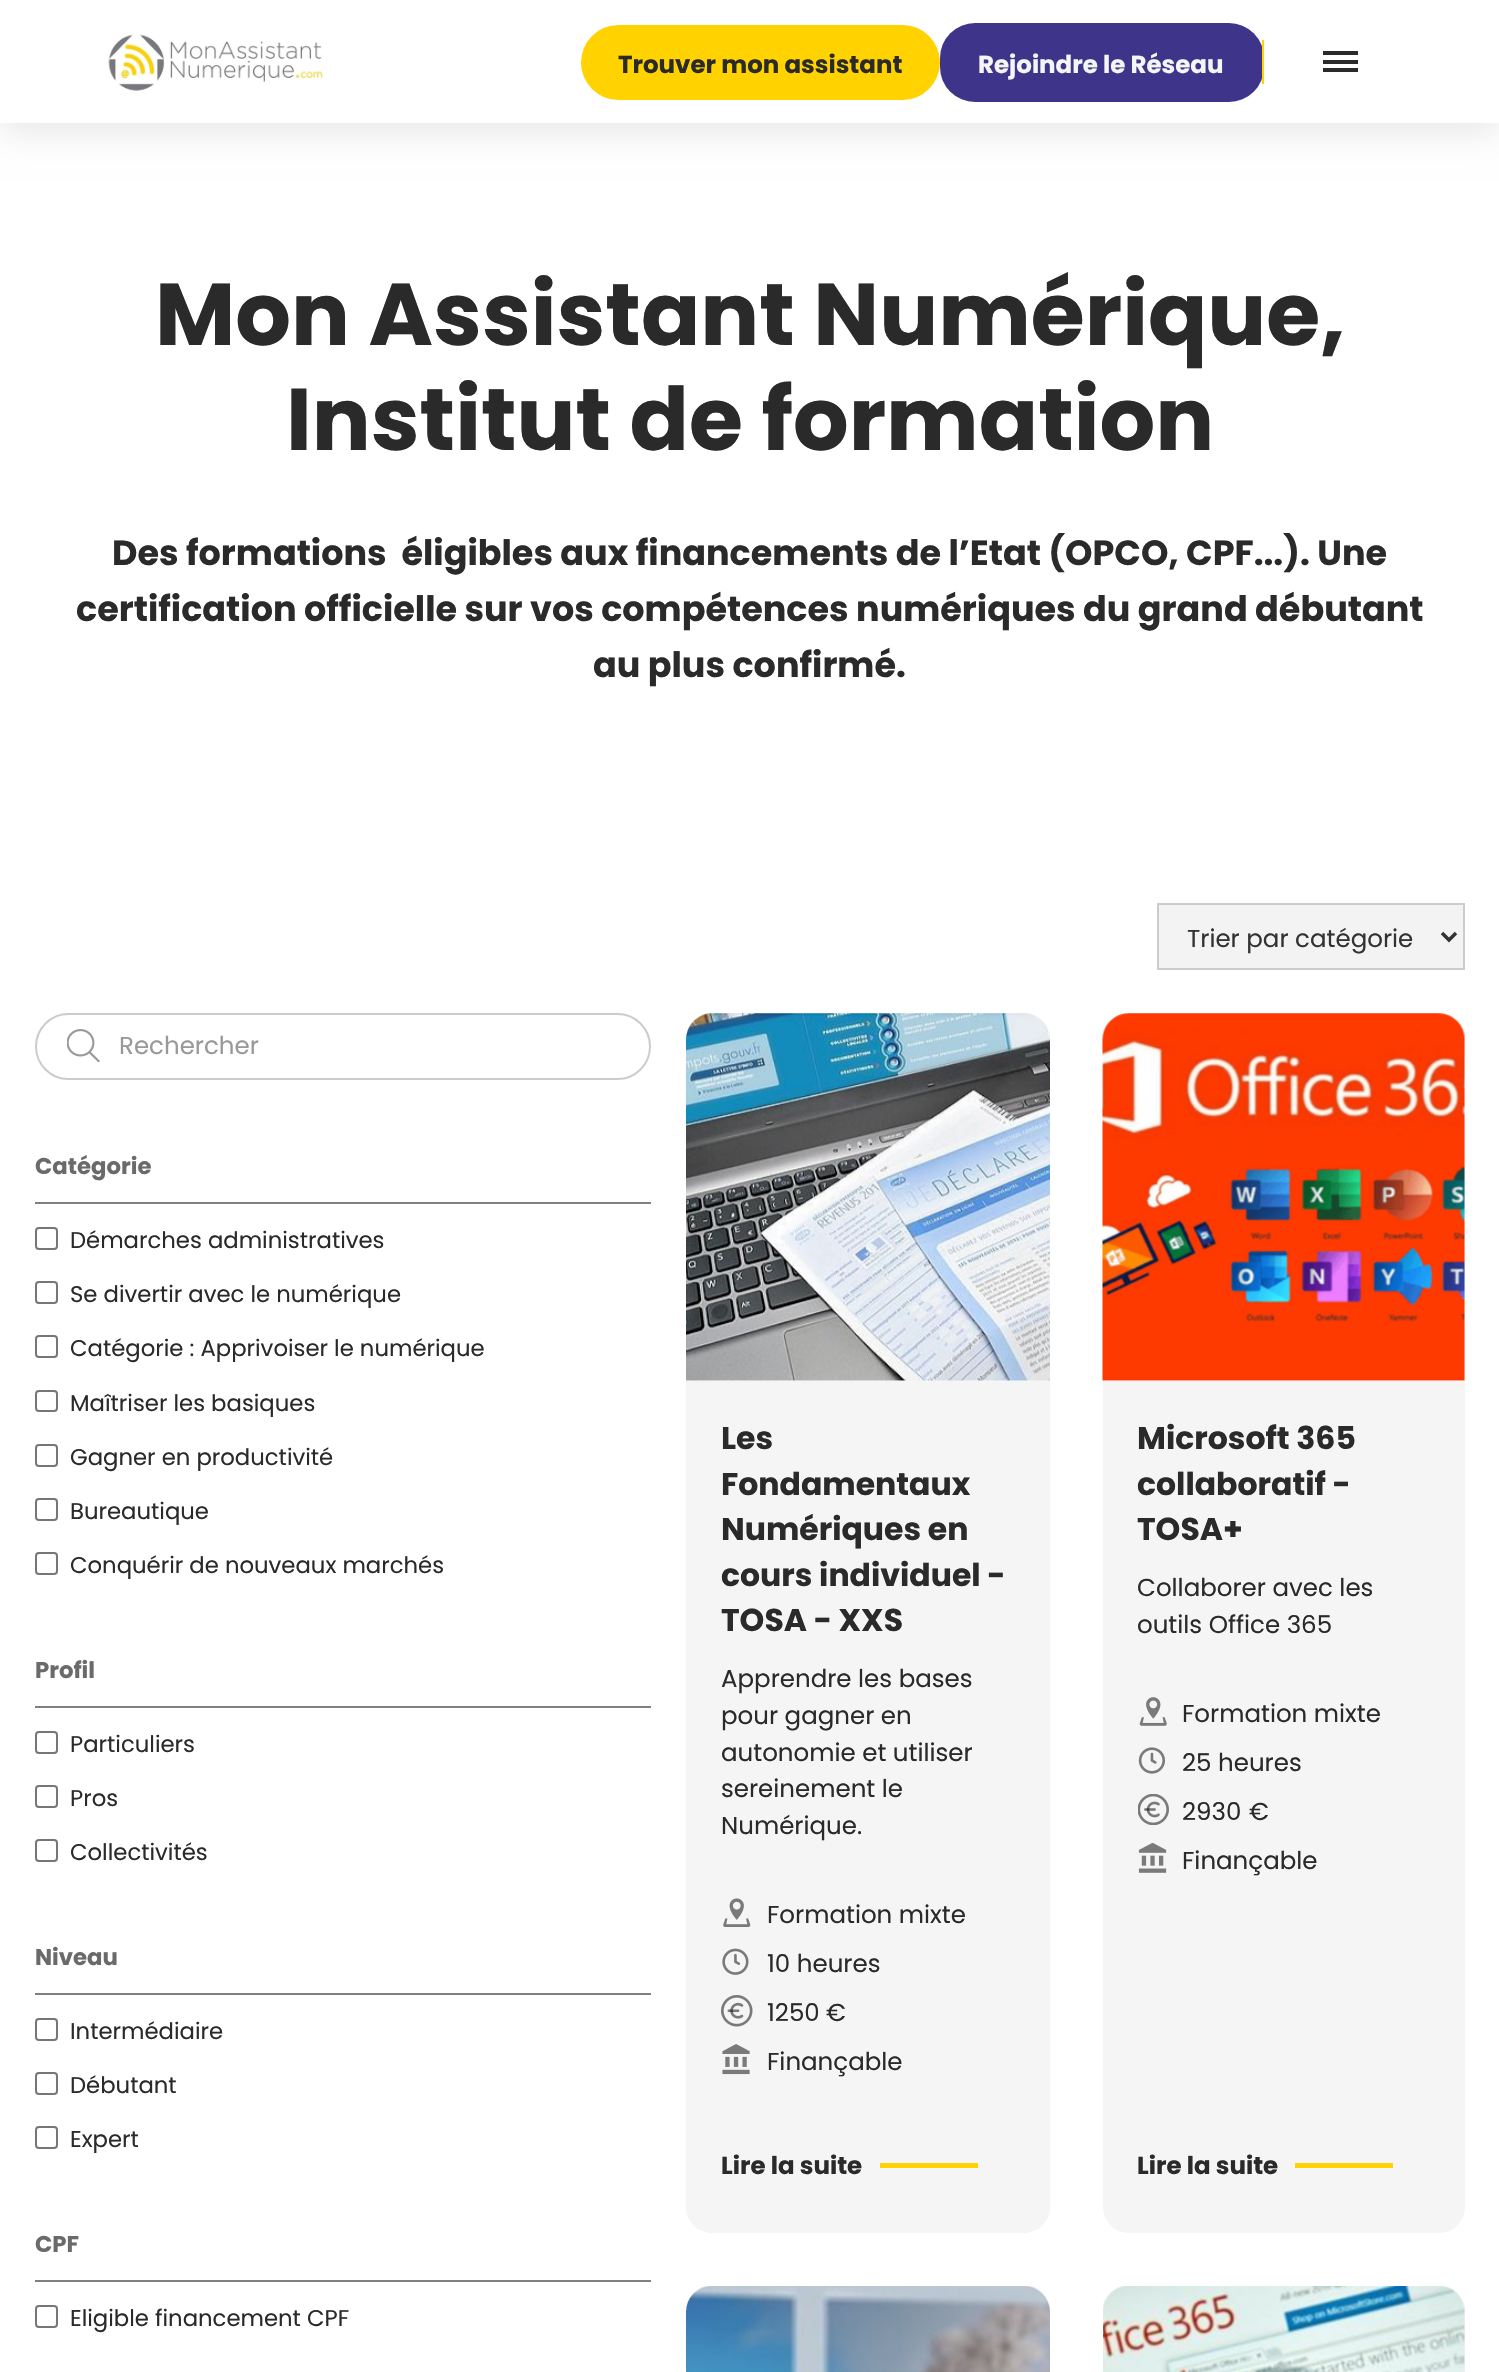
#include "include/core/SkBlurTypes.h"
#include "include/core/SkCanvas.h"
#include "include/core/SkData.h"
#include "include/core/SkFont.h"
#include "include/core/SkFontMgr.h"
#include "include/core/SkImage.h"
#include "include/core/SkMaskFilter.h"
#include "include/core/SkPaint.h"
#include "include/core/SkPathBuilder.h"
#include "include/core/SkTextBlob.h"
#include "include/effects/SkDashPathEffect.h"
#include "include/effects/SkGradientShader.h"
#include "include/utils/SkParsePath.h"

extern sk_sp<SkFontMgr> fontMgr;

static SkFont font(const char* family, int weight, float size, bool italic = false) {
    SkFontStyle style(weight, SkFontStyle::kNormal_Width,
        italic ? SkFontStyle::kItalic_Slant : SkFontStyle::kUpright_Slant);
    SkFont result(fontMgr->matchFamilyStyle(family, style), size);
    result.setSubpixel(true);
    return result;
}

static void drawLabel(SkCanvas* canvas, const char* s, float x, float y, const SkFont& font, SkColor color) {
    SkPaint ink(SkColor4f::FromColor(color));
    ink.setAntiAlias(true);
    canvas->drawString(s, x, y, font, ink);
}

static void fillRect(SkCanvas* canvas, float x, float y, float w, float h, SkColor color) {
    SkPaint ink(SkColor4f::FromColor(color));
    ink.setAntiAlias(true);
    canvas->drawRect(SkRect::MakeXYWH(x, y, w, h), ink);
}

static void fillRRect(SkCanvas* canvas, float x, float y, float w, float h, float radius, SkColor color) {
    SkPaint ink(SkColor4f::FromColor(color));
    ink.setAntiAlias(true);
    canvas->drawRoundRect(SkRect::MakeXYWH(x, y, w, h), radius, radius, ink);
}

static void drawPhoto(SkCanvas* canvas, const char* path, float x, float y, float w, float h) {
    auto image = SkImages::DeferredFromEncodedData(SkData::MakeFromFileName(path));
    canvas->drawImageRect(image, SkRect::MakeXYWH(x, y, w, h), SkSamplingOptions());
}

static SkPath parsePath(const char* data, bool evenOdd = false) {
    SkPath result = *SkParsePath::FromSVGString(data);
    if (evenOdd) result.setFillType(SkPathFillType::kEvenOdd);
    return result;
}

void draw(SkCanvas* canvas) {
    SkPaint paint;
    paint.setAntiAlias(true);
    canvas->clear(0xFFFFFFFF);
    paint.setColor(0x1A000000);
    paint.setMaskFilter(SkMaskFilter::MakeBlur(kNormal_SkBlurStyle, 17.5f));
    canvas->drawRect(SkRect::MakeXYWH(0, 7, 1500, 123), paint);
    paint.setMaskFilter(nullptr);
    fillRect(canvas, 0, 0, 1499, 123, 0xFFFFFFFF);
    drawPhoto(canvas, "assets/img1.png", 108, 34, 216, 57);
    fillRRect(canvas, 581, 25, 359, 75, 37.5f, 0xFFFFD200);
    SkFont font1 = font("Poppins", 700, 24.5f);
    drawLabel(canvas, "Trouver mon assistant", 618, 73, font1, 0xFF2A2A2A);
    fillRRect(canvas, 940, 23, 324, 79, 35, 0xFF3E358B);
    fillRect(canvas, 1262, 40, 2, 44, 0xFFFFD200);
    drawLabel(canvas, "Rejoindre le Réseau", 978, 73, font1, 0xFFF5F5F5);
    fillRect(canvas, 1323, 51, 35, 4, 0xFF2A2A2A);
    fillRect(canvas, 1323, 60, 35, 4, 0xFF2A2A2A);
    fillRect(canvas, 1323, 68, 35, 4, 0xFF2A2A2A);
    SkFont font2 = font("Poppins", 700, 87.5f);
    drawLabel(canvas, "Mon Assistant Numérique,", 155, 345, font2, 0xFF2A2A2A);
    drawLabel(canvas, "Institut de formation", 286, 450, font2, 0xFF2A2A2A);
    SkFont font3 = font("Poppins", 700, 35);
    drawLabel(canvas, "Des formations  éligibles aux financements de l’Etat (OPCO, CPF...). Une", 112, 565, font3, 0xFF2A2A2A);
    drawLabel(canvas, "certification officielle sur vos compétences numériques du grand débutant", 76, 621, font3, 0xFF2A2A2A);
    drawLabel(canvas, "au plus confirmé.", 593, 677, font3, 0xFF2A2A2A);
    paint.setColor(0xFFF3F3F3);
    canvas->drawRect(SkRect::MakeXYWH(1158, 904, 306, 65), paint);
    paint.setStroke(true);
    paint.setStrokeWidth(2);
    paint.setColor(0xFFCCCCCC);
    canvas->drawRect(SkRect::MakeXYWH(1158, 904, 306, 65), paint);
    paint.setStrokeWidth(3.5f);
    paint.setColor(0xFF333333);
    canvas->drawPath(parsePath("M1442 933L1449 940L1456 933"), paint);
    SkFont font4 = font("Poppins", 400, 24.5f);
    drawLabel(canvas, "Trier par catégorie", 1187, 947, font4, 0xFF333333);
    paint.setStrokeWidth(2);
    paint.setColor(0xFFCCCCCC);
    canvas->drawRoundRect(SkRect::MakeXYWH(36, 1014, 614, 65), 32.5f, 32.5f, paint);
    drawPhoto(canvas, "assets/img2.png", 67, 1029, 33, 33);
    drawLabel(canvas, "Rechercher", 119, 1054, font4, 0xFF999999);
    SkFont font5 = font("Poppins", 700, 22.75f);
    drawLabel(canvas, "Catégorie", 35, 1174, font5, 0xFF6A6A6A);
    fillRect(canvas, 35, 1202, 616, 2, 0xFF808080);
    paint.setColor(0xFF767676);
    canvas->drawRoundRect(SkRect::MakeXYWH(36, 1228, 21, 21), 3, 3, paint);
    SkFont font6 = font("Poppins", 400, 22.75f);
    drawLabel(canvas, "Démarches administratives", 70, 1248, font6, 0xFF2A2A2A);
    canvas->drawRoundRect(SkRect::MakeXYWH(36, 1282, 21, 21), 3, 3, paint);
    drawLabel(canvas, "Se divertir avec le numérique", 70, 1302, font6, 0xFF2A2A2A);
    canvas->drawRoundRect(SkRect::MakeXYWH(36, 1336, 21, 21), 3, 3, paint);
    drawLabel(canvas, "Catégorie : Apprivoiser le numérique", 70, 1356, font6, 0xFF2A2A2A);
    canvas->drawRoundRect(SkRect::MakeXYWH(36, 1391, 21, 20), 3, 3, paint);
    drawLabel(canvas, "Maîtriser les basiques", 70, 1411, font6, 0xFF2A2A2A);
    canvas->drawRoundRect(SkRect::MakeXYWH(36, 1445, 21, 21), 3, 3, paint);
    drawLabel(canvas, "Gagner en productivité", 70, 1465, font6, 0xFF2A2A2A);
    canvas->drawRoundRect(SkRect::MakeXYWH(36, 1499, 21, 21), 3, 3, paint);
    drawLabel(canvas, "Bureautique", 70, 1519, font6, 0xFF2A2A2A);
    canvas->drawRoundRect(SkRect::MakeXYWH(36, 1553, 21, 21), 3, 3, paint);
    drawLabel(canvas, "Conquérir de nouveaux marchés", 70, 1573, font6, 0xFF2A2A2A);
    drawLabel(canvas, "Profil", 35, 1678, font5, 0xFF6A6A6A);
    fillRect(canvas, 35, 1706, 616, 2, 0xFF808080);
    canvas->drawRoundRect(SkRect::MakeXYWH(36, 1732, 21, 21), 3, 3, paint);
    drawLabel(canvas, "Particuliers", 70, 1752, font6, 0xFF2A2A2A);
    canvas->drawRoundRect(SkRect::MakeXYWH(36, 1786, 21, 21), 3, 3, paint);
    drawLabel(canvas, "Pros", 70, 1806, font6, 0xFF2A2A2A);
    canvas->drawRoundRect(SkRect::MakeXYWH(36, 1840, 21, 21), 3, 3, paint);
    drawLabel(canvas, "Collectivités", 70, 1860, font6, 0xFF2A2A2A);
    drawLabel(canvas, "Niveau", 35, 1965, font5, 0xFF6A6A6A);
    fillRect(canvas, 35, 1993, 616, 2, 0xFF808080);
    canvas->drawRoundRect(SkRect::MakeXYWH(36, 2019, 21, 21), 3, 3, paint);
    drawLabel(canvas, "Intermédiaire", 70, 2039, font6, 0xFF2A2A2A);
    canvas->drawRoundRect(SkRect::MakeXYWH(36, 2073, 21, 21), 3, 3, paint);
    drawLabel(canvas, "Débutant", 70, 2093, font6, 0xFF2A2A2A);
    canvas->drawRoundRect(SkRect::MakeXYWH(36, 2127, 21, 21), 3, 3, paint);
    drawLabel(canvas, "Expert", 70, 2147, font6, 0xFF2A2A2A);
    drawLabel(canvas, "CPF", 35, 2252, font5, 0xFF6A6A6A);
    fillRect(canvas, 35, 2280, 616, 2, 0xFF808080);
    canvas->drawRoundRect(SkRect::MakeXYWH(36, 2306, 21, 21), 3, 3, paint);
    drawLabel(canvas, "Eligible financement CPF", 70, 2326, font6, 0xFF2A2A2A);
    fillRRect(canvas, 686, 1013, 364, 1220, 26, 0xFFF5F5F5);
    drawPhoto(canvas, "assets/img3.png", 686, 1013, 364, 368);
    SkFont font7 = font("Poppins", 700, 31.5f);
    drawLabel(canvas, "Les", 721, 1449, font7, 0xFF2A2A2A);
    drawLabel(canvas, "Fondamentaux", 721, 1495, font7, 0xFF2A2A2A);
    drawLabel(canvas, "Numériques en", 721, 1540, font7, 0xFF2A2A2A);
    drawLabel(canvas, "cours individuel -", 721, 1586, font7, 0xFF2A2A2A);
    drawLabel(canvas, "TOSA - XXS", 721, 1631, font7, 0xFF2A2A2A);
    drawLabel(canvas, "Apprendre les bases", 721, 1687, font4, 0xFF2A2A2A);
    drawLabel(canvas, "pour gagner en", 721, 1724, font4, 0xFF2A2A2A);
    drawLabel(canvas, "autonomie et utiliser", 721, 1761, font4, 0xFF2A2A2A);
    drawLabel(canvas, "sereinement le", 721, 1797, font4, 0xFF2A2A2A);
    drawLabel(canvas, "Numérique.", 721, 1834, font4, 0xFF2A2A2A);
    drawPhoto(canvas, "assets/img4.png", 723, 1898, 28, 29);
    drawLabel(canvas, "Formation mixte", 767, 1923, font4, 0xFF2A2A2A);
    drawPhoto(canvas, "assets/img5.png", 722, 1948, 27, 27);
    drawLabel(canvas, "10 heures", 767, 1972, font4, 0xFF2A2A2A);
    drawPhoto(canvas, "assets/img6.png", 721, 1995, 32, 32);
    drawLabel(canvas, "1250", 767, 2021, font4, 0xFF2A2A2A);
    drawLabel(canvas, "€", 826, 2021, font4, 0xFF2A2A2A);
    drawPhoto(canvas, "assets/img7.png", 722, 2044, 28, 31);
    drawLabel(canvas, "Finançable", 767, 2070, font4, 0xFF2A2A2A);
    drawLabel(canvas, "Lire la suite", 721, 2174, font1, 0xFF2A2A2A);
    fillRect(canvas, 880, 2163, 98, 5, 0xFFFFD200);
    fillRRect(canvas, 1103, 1013, 362, 1220, 26, 0xFFF5F5F5);
    drawPhoto(canvas, "assets/img8.png", 1102, 1013, 363, 368);
    drawLabel(canvas, "Microsoft 365", 1137, 1449, font7, 0xFF2A2A2A);
    drawLabel(canvas, "collaboratif -", 1137, 1495, font7, 0xFF2A2A2A);
    drawLabel(canvas, "TOSA+", 1137, 1540, font7, 0xFF2A2A2A);
    drawLabel(canvas, "Collaborer avec les", 1137, 1596, font4, 0xFF2A2A2A);
    drawLabel(canvas, "outils Office 365", 1137, 1633, font4, 0xFF2A2A2A);
    drawPhoto(canvas, "assets/img9.png", 1139, 1697, 28, 29);
    drawLabel(canvas, "Formation mixte", 1182, 1722, font4, 0xFF2A2A2A);
    drawPhoto(canvas, "assets/img10.png", 1138, 1747, 27, 27);
    drawLabel(canvas, "25 heures", 1182, 1771, font4, 0xFF2A2A2A);
    drawPhoto(canvas, "assets/img11.png", 1138, 1794, 31, 31);
    drawLabel(canvas, "2930", 1182, 1820, font4, 0xFF2A2A2A);
    drawLabel(canvas, "€", 1249, 1820, font4, 0xFF2A2A2A);
    drawPhoto(canvas, "assets/img12.png", 1138, 1843, 29, 30);
    drawLabel(canvas, "Finançable", 1182, 1869, font4, 0xFF2A2A2A);
    drawLabel(canvas, "Lire la suite", 1137, 2174, font1, 0xFF2A2A2A);
    fillRect(canvas, 1295, 2163, 98, 5, 0xFFFFD200);
    drawPhoto(canvas, "assets/img13.png", 686, 2286, 364, 86);
    fillRRect(canvas, 1103, 2286, 362, 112, 26, 0xFFF5F5F5);
    drawPhoto(canvas, "assets/img14.png", 1103, 2286, 362, 86);
}
